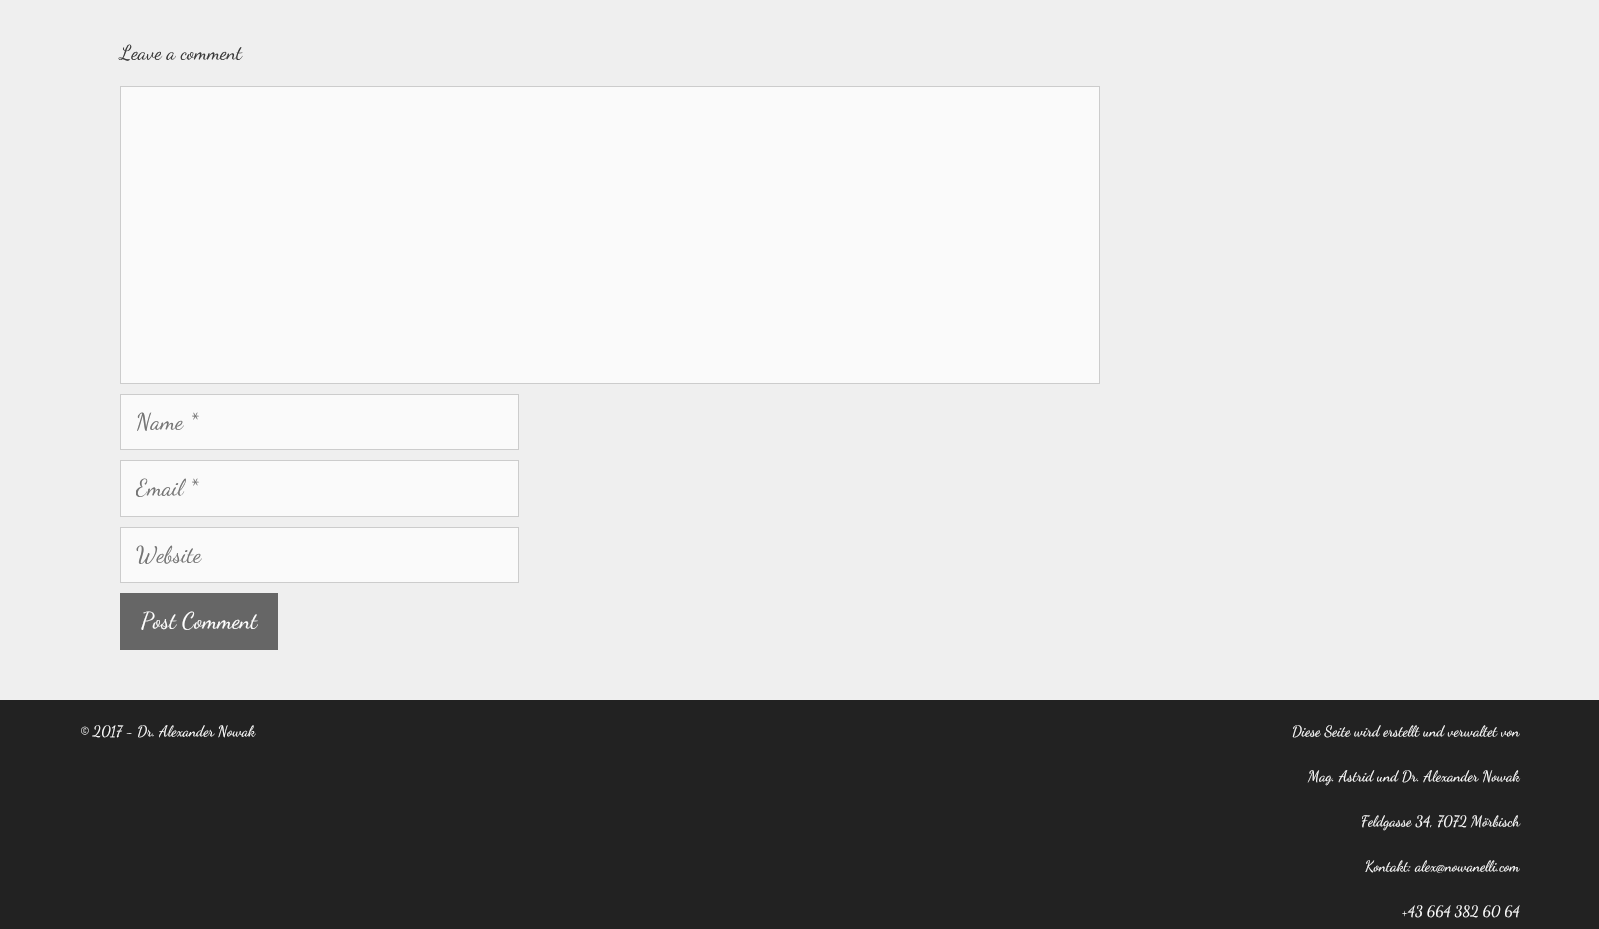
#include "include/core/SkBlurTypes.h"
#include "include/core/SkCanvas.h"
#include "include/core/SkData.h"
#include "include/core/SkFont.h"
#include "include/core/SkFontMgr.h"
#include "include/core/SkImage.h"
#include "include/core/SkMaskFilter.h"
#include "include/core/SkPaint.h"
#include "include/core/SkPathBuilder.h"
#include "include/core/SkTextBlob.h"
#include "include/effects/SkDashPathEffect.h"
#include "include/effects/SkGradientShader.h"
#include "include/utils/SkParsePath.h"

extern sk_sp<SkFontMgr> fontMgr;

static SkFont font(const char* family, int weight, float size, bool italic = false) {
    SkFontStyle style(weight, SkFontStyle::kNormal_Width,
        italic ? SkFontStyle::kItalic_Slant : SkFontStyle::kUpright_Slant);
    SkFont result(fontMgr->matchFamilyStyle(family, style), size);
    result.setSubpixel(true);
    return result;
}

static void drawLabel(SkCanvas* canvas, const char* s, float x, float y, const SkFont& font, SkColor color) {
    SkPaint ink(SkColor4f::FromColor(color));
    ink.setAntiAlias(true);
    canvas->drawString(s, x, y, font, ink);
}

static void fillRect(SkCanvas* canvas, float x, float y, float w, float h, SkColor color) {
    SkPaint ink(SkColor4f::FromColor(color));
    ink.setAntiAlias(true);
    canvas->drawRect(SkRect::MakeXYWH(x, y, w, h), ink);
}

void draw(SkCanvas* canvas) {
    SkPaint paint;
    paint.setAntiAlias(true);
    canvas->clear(0xFFEFEFEF);
    SkFont font1 = font("Dancing Script", 400, 20);
    drawLabel(canvas, "Leave a comment", 120, 59, font1, 0xFF3A3A3A);
    paint.setColor(0xFFFAFAFA);
    canvas->drawRect(SkRect::MakeXYWH(120.5f, 86.5f, 979, 297), paint);
    paint.setStroke(true);
    paint.setStrokeWidth(1);
    paint.setColor(0xFFCCCCCC);
    canvas->drawRect(SkRect::MakeXYWH(120.5f, 86.5f, 979, 297), paint);
    paint.setStroke(false);
    paint.setColor(0xFFFAFAFA);
    canvas->drawRect(SkRect::MakeXYWH(120.5f, 394.5f, 398, 55), paint);
    paint.setStroke(true);
    paint.setColor(0xFFCCCCCC);
    canvas->drawRect(SkRect::MakeXYWH(120.5f, 394.5f, 398, 55), paint);
    SkFont font2 = font("Dancing Script", 400, 23);
    drawLabel(canvas, "Name *", 136, 429, font2, 0xFF757575);
    paint.setStroke(false);
    paint.setColor(0xFFFAFAFA);
    canvas->drawRect(SkRect::MakeXYWH(120.5f, 460.5f, 398, 56), paint);
    paint.setStroke(true);
    paint.setColor(0xFFCCCCCC);
    canvas->drawRect(SkRect::MakeXYWH(120.5f, 460.5f, 398, 56), paint);
    canvas->save();
    canvas->clipRect(SkRect::MakeXYWH(136, 474, 367, 27));
    drawLabel(canvas, "Email *", 136, 495, font2, 0xFF757575);
    canvas->restore();
    paint.setStroke(false);
    paint.setColor(0xFFFAFAFA);
    canvas->drawRect(SkRect::MakeXYWH(120.5f, 527.5f, 398, 55), paint);
    paint.setStroke(true);
    paint.setColor(0xFFCCCCCC);
    canvas->drawRect(SkRect::MakeXYWH(120.5f, 527.5f, 398, 55), paint);
    drawLabel(canvas, "Website", 136, 562, font2, 0xFF757575);
    fillRect(canvas, 120, 593, 158, 57, 0xFF666666);
    drawLabel(canvas, "Post Comment", 141, 628, font2, 0xFFFFFFFF);
    fillRect(canvas, 0, 700, 1599, 229, 0xFF222222);
    SkFont font3 = font("Dancing Script", 400, 15);
    drawLabel(canvas, "© 2017 - Dr. Alexander Nowak", 80, 736, font3, 0xFFFFFFFF);
    drawLabel(canvas, "Diese Seite wird erstellt und verwaltet von", 1292, 736, font3, 0xFFFFFFFF);
    drawLabel(canvas, "Mag. Astrid und Dr. Alexander Nowak", 1308, 781, font3, 0xFFFFFFFF);
    drawLabel(canvas, "Feldgasse 34, 7072 Mörbisch", 1361, 826, font3, 0xFFFFFFFF);
    drawLabel(canvas, "Kontakt: alex@nowanelli.com", 1365, 871, font3, 0xFFFFFFFF);
    drawLabel(canvas, "+43 664 382 60 64", 1402, 916, font3, 0xFFFFFFFF);
}
